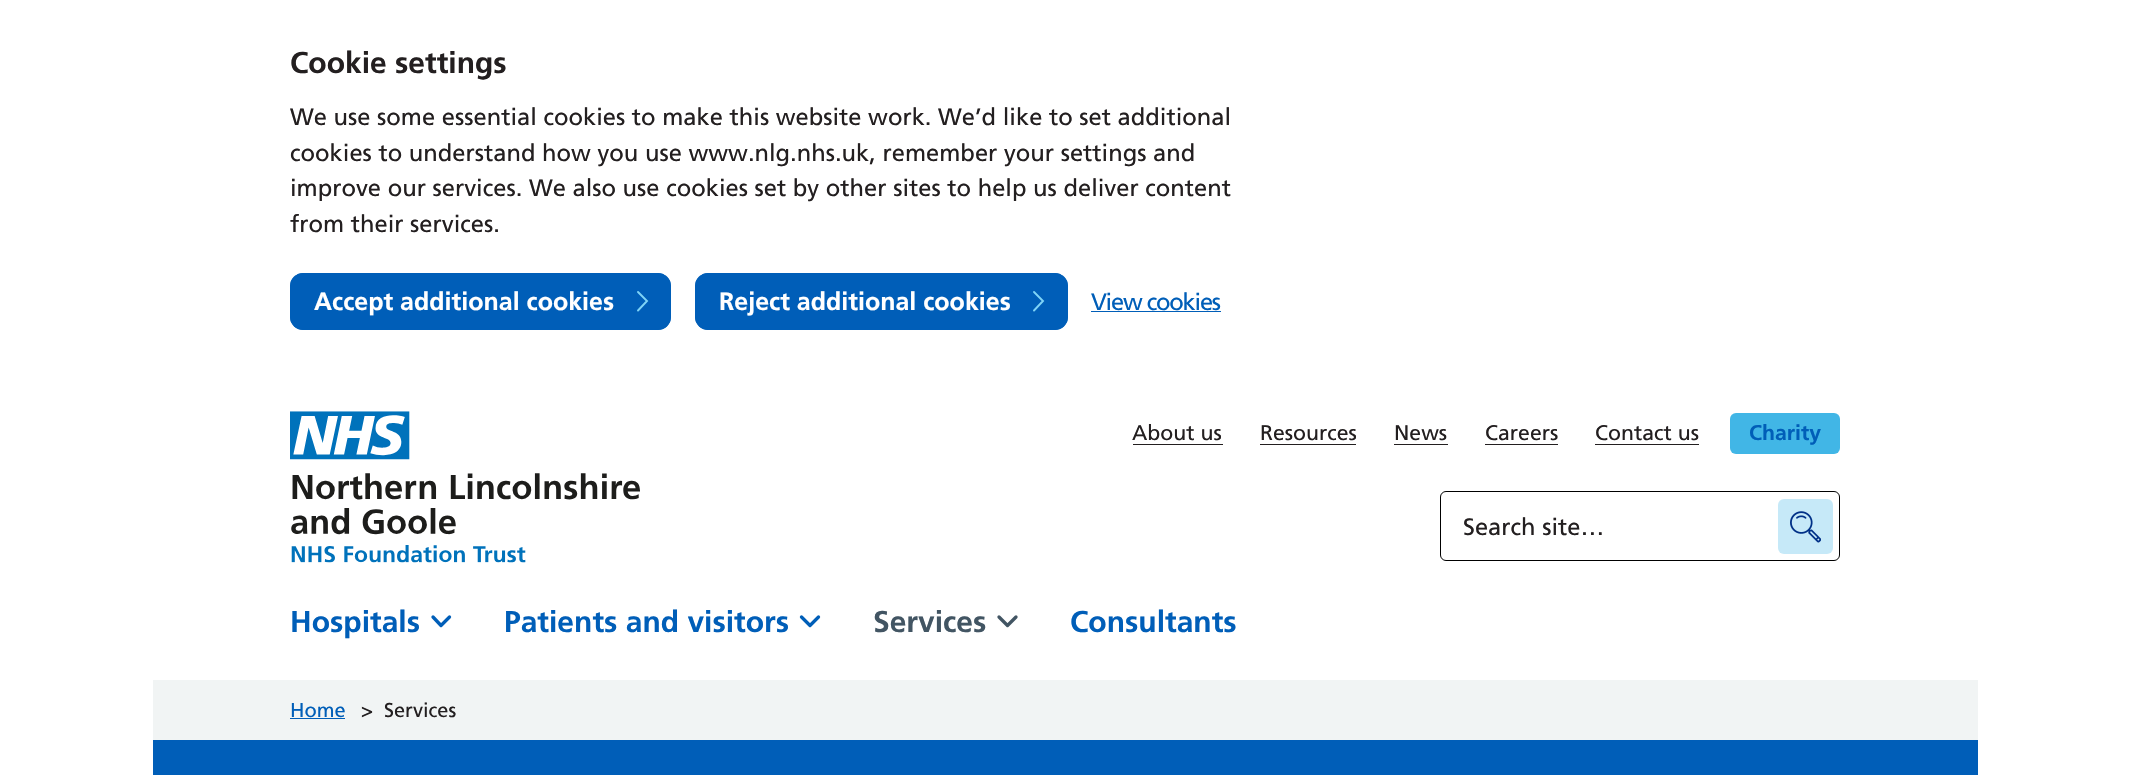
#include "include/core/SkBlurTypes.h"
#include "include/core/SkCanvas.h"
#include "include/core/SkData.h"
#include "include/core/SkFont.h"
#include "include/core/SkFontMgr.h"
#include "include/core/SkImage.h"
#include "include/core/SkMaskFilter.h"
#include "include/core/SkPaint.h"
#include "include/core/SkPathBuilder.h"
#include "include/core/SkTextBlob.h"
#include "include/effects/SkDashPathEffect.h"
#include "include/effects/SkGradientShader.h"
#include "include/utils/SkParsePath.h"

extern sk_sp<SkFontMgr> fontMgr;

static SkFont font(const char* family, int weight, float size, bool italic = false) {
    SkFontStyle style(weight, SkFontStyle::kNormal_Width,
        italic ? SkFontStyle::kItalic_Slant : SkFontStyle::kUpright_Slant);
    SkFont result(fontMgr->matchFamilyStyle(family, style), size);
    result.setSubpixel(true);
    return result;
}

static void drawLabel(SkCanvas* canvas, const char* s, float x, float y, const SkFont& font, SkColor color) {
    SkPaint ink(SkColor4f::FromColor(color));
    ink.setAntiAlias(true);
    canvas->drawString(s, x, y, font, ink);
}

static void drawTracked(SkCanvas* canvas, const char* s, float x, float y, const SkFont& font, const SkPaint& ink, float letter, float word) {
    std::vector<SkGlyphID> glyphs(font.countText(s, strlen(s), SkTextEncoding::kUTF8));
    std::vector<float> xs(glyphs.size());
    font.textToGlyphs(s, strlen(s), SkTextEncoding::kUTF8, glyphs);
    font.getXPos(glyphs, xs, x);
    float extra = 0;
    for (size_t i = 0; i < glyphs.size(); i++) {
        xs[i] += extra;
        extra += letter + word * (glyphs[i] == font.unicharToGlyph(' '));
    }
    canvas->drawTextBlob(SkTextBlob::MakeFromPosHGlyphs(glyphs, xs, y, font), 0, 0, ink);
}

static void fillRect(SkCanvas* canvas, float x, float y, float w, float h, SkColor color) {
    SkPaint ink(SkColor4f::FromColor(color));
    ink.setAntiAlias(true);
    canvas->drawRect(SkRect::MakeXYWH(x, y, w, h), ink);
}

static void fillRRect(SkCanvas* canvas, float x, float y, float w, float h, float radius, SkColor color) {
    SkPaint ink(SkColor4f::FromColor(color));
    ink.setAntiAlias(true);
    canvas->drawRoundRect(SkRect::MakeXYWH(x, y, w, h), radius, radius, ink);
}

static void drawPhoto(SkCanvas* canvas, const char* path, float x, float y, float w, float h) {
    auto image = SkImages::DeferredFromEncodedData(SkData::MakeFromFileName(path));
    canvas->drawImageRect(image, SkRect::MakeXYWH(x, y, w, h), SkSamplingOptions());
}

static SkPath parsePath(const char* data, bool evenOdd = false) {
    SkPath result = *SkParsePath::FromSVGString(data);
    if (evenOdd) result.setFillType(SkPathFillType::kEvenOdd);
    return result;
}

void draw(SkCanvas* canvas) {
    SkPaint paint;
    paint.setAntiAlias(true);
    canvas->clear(0xFFFFFFFF);
    SkFont font1 = font("Frutiger", 700, 30);
    drawLabel(canvas, "Cookie settings", 290, 73, font1, 0xFF231F20);
    SkFont font2 = font("Frutiger", 400, 23.75f);
    drawLabel(canvas, "We use some essential cookies to make this website work. We’d like to set additional", 290, 125, font2, 0xFF231F20);
    drawLabel(canvas, "cookies to understand how you use www.nlg.nhs.uk, remember your settings and", 290, 161, font2, 0xFF231F20);
    drawLabel(canvas, "improve our services. We also use cookies set by other sites to help us deliver content", 290, 196, font2, 0xFF231F20);
    drawLabel(canvas, "from their services.", 290, 232, font2, 0xFF231F20);
    fillRRect(canvas, 290, 273, 381, 57, 13, 0xFF005EB8);
    paint.setStroke(true);
    paint.setStrokeWidth(1.9f);
    paint.setStrokeCap(SkPaint::kRound_Cap);
    paint.setColor(0xFF7FD4F7);
    canvas->drawPath(parsePath("M638 292L647 301L638 310.5"), paint);
    paint.setStrokeWidth(1);
    paint.setStrokeCap(SkPaint::kButt_Cap);
    paint.setColor(0xFF005EB8);
    canvas->drawRoundRect(SkRect::MakeXYWH(290.5f, 273.5f, 380, 56), 12.5f, 12.5f, paint);
    SkFont font3 = font("Frutiger", 700, 25);
    drawLabel(canvas, "Accept additional cookies", 314, 310, font3, 0xFFFFFFFF);
    fillRRect(canvas, 695, 273, 373, 57, 13, 0xFF005EB8);
    paint.setStrokeWidth(1.9f);
    paint.setStrokeCap(SkPaint::kRound_Cap);
    paint.setColor(0xFF7FD4F7);
    canvas->drawPath(parsePath("M1034 292L1043 301L1034 310.5"), paint);
    paint.setStrokeWidth(1);
    paint.setStrokeCap(SkPaint::kButt_Cap);
    paint.setColor(0xFF005EB8);
    canvas->drawRoundRect(SkRect::MakeXYWH(695.5f, 273.5f, 372, 56), 12.5f, 12.5f, paint);
    drawLabel(canvas, "Reject additional cookies", 719, 310, font3, 0xFFFFFFFF);
    paint.setStroke(false);
    drawTracked(canvas, "View cookies", 1091, 310, font2, paint, -1.25f, 0);
    fillRect(canvas, 1091, 311, 130, 1, 0xFF005EB8);
    drawPhoto(canvas, "assets/img1.png", 290, 411, 350, 152);
    SkFont font4 = font("Frutiger", 400, 21.25f);
    drawLabel(canvas, "About us", 1132, 440, font4, 0xFF231F20);
    fillRect(canvas, 1133, 444, 90, 1, 0xFF231F20);
    drawLabel(canvas, "Resources", 1260, 440, font4, 0xFF231F20);
    fillRect(canvas, 1260, 444, 96, 1, 0xFF231F20);
    drawLabel(canvas, "News", 1394, 440, font4, 0xFF231F20);
    fillRect(canvas, 1394, 444, 54, 1, 0xFF231F20);
    drawLabel(canvas, "Careers", 1485, 440, font4, 0xFF231F20);
    fillRect(canvas, 1485, 444, 73, 1, 0xFF231F20);
    drawLabel(canvas, "Contact us", 1595, 440, font4, 0xFF231F20);
    fillRect(canvas, 1595, 444, 104, 1, 0xFF231F20);
    fillRRect(canvas, 1730, 413, 110, 41, 6, 0xFF41B6E6);
    SkFont font5 = font("Frutiger", 700, 21.25f);
    drawLabel(canvas, "Charity", 1749, 440, font5, 0xFF005EB8);
    paint.setStroke(true);
    paint.setColor(0xFF000000);
    canvas->drawRoundRect(SkRect::MakeXYWH(1440.5f, 491.5f, 399, 69), 5.5f, 5.5f, paint);
    drawLabel(canvas, "Search site…", 1463, 535, font2, 0xFF231F20);
    fillRRect(canvas, 1778, 499, 55, 55, 6, 0xFFC6E9F8);
    drawPhoto(canvas, "assets/img2.png", 1790, 511, 31, 32);
    paint.setStrokeWidth(3.3f);
    paint.setStrokeCap(SkPaint::kRound_Cap);
    paint.setStrokeJoin(SkPaint::kRound_Join);
    paint.setColor(0xFF005EB8);
    canvas->drawPath(parsePath("M433 617L441 625.5L449.5 617"), paint);
    drawLabel(canvas, "Hospitals", 290, 632, font1, 0xFF005EB8);
    canvas->drawPath(parsePath("M801.5 617L810 625.5L818.5 617"), paint);
    drawLabel(canvas, "Patients and visitors", 504, 632, font1, 0xFF005EB8);
    paint.setColor(0xFF425563);
    canvas->drawPath(parsePath("M999 617L1007.5 625.5L1016 617"), paint);
    drawLabel(canvas, "Services", 873, 632, font1, 0xFF425563);
    drawLabel(canvas, "Consultants", 1070, 632, font1, 0xFF005EB8);
    fillRect(canvas, 153, 680, 1825, 60, 0xFFF1F4F4);
    SkFont font6 = font("Frutiger", 400, 20);
    drawLabel(canvas, "Home", 290, 717, font6, 0xFF005EB8);
    fillRect(canvas, 290, 718, 55, 1, 0xFF005EB8);
    drawLabel(canvas, ">", 361, 717, font6, 0xFF231F20);
    drawLabel(canvas, "Services", 384, 717, font6, 0xFF231F20);
    fillRect(canvas, 153, 740, 1825, 35, 0xFF005EB8);
}
